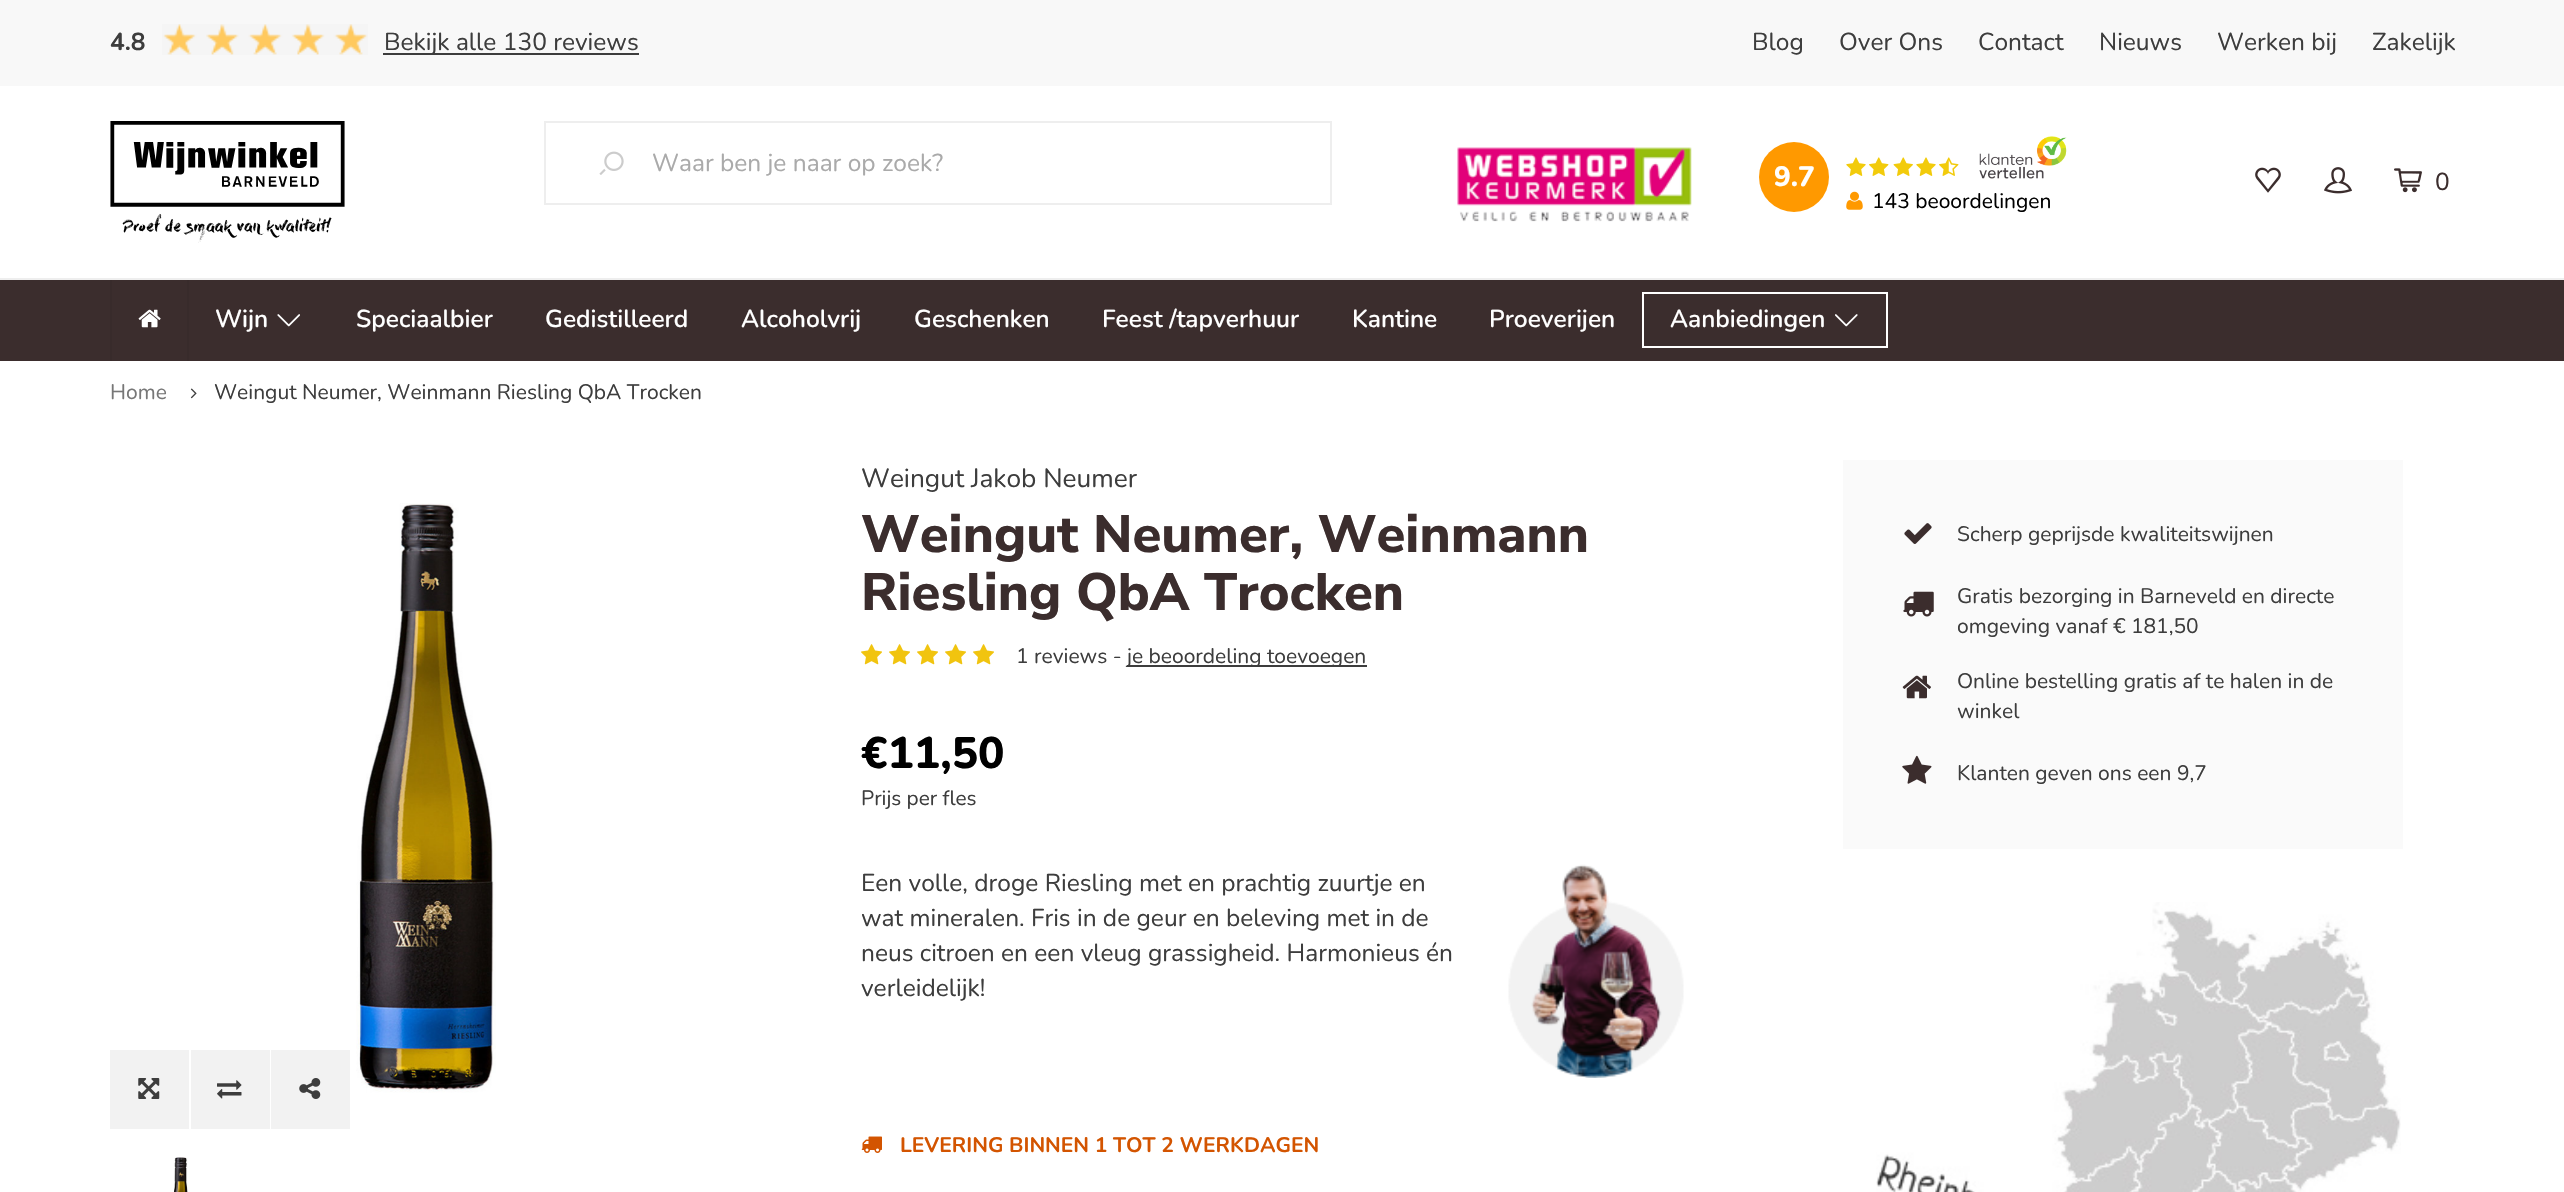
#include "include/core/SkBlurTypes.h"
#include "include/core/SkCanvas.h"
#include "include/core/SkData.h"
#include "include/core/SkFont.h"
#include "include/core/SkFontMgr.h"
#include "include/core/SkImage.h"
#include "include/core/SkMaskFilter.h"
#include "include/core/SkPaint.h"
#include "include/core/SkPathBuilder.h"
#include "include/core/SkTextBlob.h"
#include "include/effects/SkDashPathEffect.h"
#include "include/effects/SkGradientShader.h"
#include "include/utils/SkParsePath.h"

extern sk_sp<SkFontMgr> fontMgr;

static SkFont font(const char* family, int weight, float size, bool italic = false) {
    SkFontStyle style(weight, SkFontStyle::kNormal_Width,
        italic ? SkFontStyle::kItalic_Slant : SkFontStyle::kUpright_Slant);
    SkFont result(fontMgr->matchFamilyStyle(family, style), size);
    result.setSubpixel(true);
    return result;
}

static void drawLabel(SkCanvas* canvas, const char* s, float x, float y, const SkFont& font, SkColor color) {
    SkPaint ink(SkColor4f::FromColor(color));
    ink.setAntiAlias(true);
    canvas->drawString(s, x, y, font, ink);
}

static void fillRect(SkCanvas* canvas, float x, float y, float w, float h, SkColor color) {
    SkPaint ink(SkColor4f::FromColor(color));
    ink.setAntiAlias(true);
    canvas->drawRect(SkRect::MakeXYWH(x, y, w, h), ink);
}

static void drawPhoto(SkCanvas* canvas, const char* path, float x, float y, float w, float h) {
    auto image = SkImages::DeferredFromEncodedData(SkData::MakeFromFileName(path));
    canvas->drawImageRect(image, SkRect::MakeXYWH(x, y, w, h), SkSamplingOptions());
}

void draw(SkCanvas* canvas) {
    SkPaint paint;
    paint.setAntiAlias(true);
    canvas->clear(0xFFFFFFFF);
    fillRect(canvas, 0, 0, 2564, 86, 0xFFF8F8F8);
    SkFont font1 = font("Nunito", 700, 24.5f);
    drawLabel(canvas, "4.8", 110, 50, font1, 0xFF3D3D3D);
    drawPhoto(canvas, "assets/img1.png", 162, 24, 206, 31);
    fillRect(canvas, 383, 53, 256, 2, 0xFF3D3D3D);
    SkFont font2 = font("Nunito", 400, 24.5f);
    drawLabel(canvas, "Bekijk alle 130 reviews", 384, 50, font2, 0xFF3D3D3D);
    drawLabel(canvas, "Blog", 1752, 50, font2, 0xFF3D3D3D);
    drawLabel(canvas, "Over Ons", 1839, 50, font2, 0xFF3D3D3D);
    drawLabel(canvas, "Contact", 1978, 50, font2, 0xFF3D3D3D);
    drawLabel(canvas, "Nieuws", 2099, 50, font2, 0xFF3D3D3D);
    drawLabel(canvas, "Werken bij", 2217, 50, font2, 0xFF3D3D3D);
    drawLabel(canvas, "Zakelijk", 2372, 50, font2, 0xFF3D3D3D);
    fillRect(canvas, 0, 278, 2564, 2, 0xFFEEEEEE);
    drawPhoto(canvas, "assets/img2.png", 110, 121, 235, 122);
    paint.setStroke(true);
    paint.setStrokeWidth(2);
    paint.setColor(0xFFEEEEEE);
    canvas->drawRect(SkRect::MakeXYWH(545, 122, 786, 82), paint);
    drawPhoto(canvas, "assets/img3.png", 599, 151, 25, 24);
    drawLabel(canvas, "Waar ben je naar op zoek?", 652, 171, font2, 0xFFAAAAAA);
    drawPhoto(canvas, "assets/img4.png", 1457, 147, 235, 75);
    paint.setStroke(false);
    paint.setColor(0xFFFF9900);
    canvas->drawCircle(1794, 177, 35, paint);
    SkFont font3 = font("Nunito", 800, 28);
    drawLabel(canvas, "9.7", 1774, 186, font3, 0xFFFFFFFF);
    drawPhoto(canvas, "assets/img5.png", 1846, 157, 20, 19);
    drawPhoto(canvas, "assets/img6.png", 1869, 157, 20, 19);
    drawPhoto(canvas, "assets/img7.png", 1893, 157, 20, 19);
    drawPhoto(canvas, "assets/img5.png", 1916, 157, 20, 19);
    drawPhoto(canvas, "assets/img8.png", 1939, 157, 20, 19);
    drawPhoto(canvas, "assets/img9.png", 1979, 136, 88, 43);
    drawPhoto(canvas, "assets/img10.png", 1846, 191, 17, 19);
    SkFont font4 = font("Nunito", 400, 21);
    drawLabel(canvas, "143 beoordelingen", 1872, 208, font4, 0xFF000000);
    drawPhoto(canvas, "assets/img11.png", 2255, 167, 26, 26);
    drawPhoto(canvas, "assets/img12.png", 2324, 167, 28, 27);
    drawPhoto(canvas, "assets/img13.png", 2394, 168, 28, 25);
    drawLabel(canvas, "0", 2435, 190, font2, 0xFF3B2D2D);
    fillRect(canvas, 0, 280, 2564, 81, 0xFF3B2D2D);
    fillRect(canvas, 187, 280, 2, 81, 0xFF382B2B);
    fillRect(canvas, 110, 280, 2, 81, 0xFF382B2B);
    drawPhoto(canvas, "assets/img14.png", 138, 309, 23, 19);
    SkFont font5 = font("Nunito", 600, 24.5f);
    drawLabel(canvas, "Wijn", 215, 327, font5, 0xFFFFFFFF);
    drawPhoto(canvas, "assets/img15.png", 277, 314, 23, 13);
    drawLabel(canvas, "Speciaalbier", 356, 327, font5, 0xFFFFFFFF);
    drawLabel(canvas, "Gedistilleerd", 545, 327, font5, 0xFFFFFFFF);
    drawLabel(canvas, "Alcoholvrij", 741, 327, font5, 0xFFFFFFFF);
    drawLabel(canvas, "Geschenken", 914, 327, font5, 0xFFFFFFFF);
    drawLabel(canvas, "Feest /tapverhuur", 1102, 327, font5, 0xFFFFFFFF);
    drawLabel(canvas, "Kantine", 1352, 327, font5, 0xFFFFFFFF);
    drawLabel(canvas, "Proeverijen", 1489, 327, font5, 0xFFFFFFFF);
    paint.setStroke(true);
    paint.setColor(0xFFFFFFFF);
    canvas->drawRect(SkRect::MakeXYWH(1643, 293, 244, 54), paint);
    drawLabel(canvas, "Aanbiedingen", 1670, 327, font5, 0xFFFFFFFF);
    drawPhoto(canvas, "assets/img16.png", 1835, 314, 23, 13);
    drawLabel(canvas, "Home", 110, 399, font4, 0xFF777777);
    drawPhoto(canvas, "assets/img17.png", 190, 388, 7, 11);
    drawLabel(canvas, "Weingut Neumer, Weinmann Riesling QbA Trocken", 214, 399, font4, 0xFF3D3D3D);
    fillRect(canvas, 110, 1050, 79, 79, 0xFFF2F2F2);
    drawPhoto(canvas, "assets/img18.png", 138, 1078, 22, 21);
    fillRect(canvas, 191, 1050, 79, 79, 0xFFF2F2F2);
    drawPhoto(canvas, "assets/img19.png", 217, 1080, 25, 19);
    fillRect(canvas, 271, 1050, 79, 79, 0xFFF2F2F2);
    drawPhoto(canvas, "assets/img20.png", 299, 1078, 22, 21);
    drawPhoto(canvas, "assets/img21.png", 356, 503, 140, 590);
    drawPhoto(canvas, "assets/img22.png", 174, 1157, 14, 35);
    SkFont font6 = font("Nunito", 400, 26.25f);
    drawLabel(canvas, "Weingut Jakob Neumer", 861, 487, font6, 0xFF3D3D3D);
    SkFont font7 = font("Nunito Sans", 800, 52.5f);
    drawLabel(canvas, "Weingut Neumer, Weinmann", 861, 552, font7, 0xFF3B2D2D);
    drawLabel(canvas, "Riesling QbA Trocken", 861, 610, font7, 0xFF3B2D2D);
    drawPhoto(canvas, "assets/img23.png", 861, 644, 21, 21);
    drawPhoto(canvas, "assets/img23.png", 889, 644, 21, 21);
    drawPhoto(canvas, "assets/img23.png", 917, 644, 21, 21);
    drawPhoto(canvas, "assets/img23.png", 945, 644, 21, 21);
    drawPhoto(canvas, "assets/img23.png", 973, 644, 21, 21);
    drawLabel(canvas, "1 reviews -", 1016, 663, font4, 0xFF3D3D3D);
    fillRect(canvas, 1127, 665, 240, 2, 0xFF3D3D3D);
    drawLabel(canvas, "je beoordeling toevoegen", 1127, 663, font4, 0xFF3D3D3D);
    SkFont font8 = font("Nunito", 800, 44);
    drawLabel(canvas, "€11,50", 861, 768, font8, 0xFF000000);
    SkFont font9 = font("Nunito", 400, 20.75f);
    drawLabel(canvas, "Prijs per fles", 861, 805, font9, 0xFF3D3D3D);
    drawLabel(canvas, "Een volle, droge Riesling met en prachtig zuurtje en", 861, 891, font2, 0xFF3D3D3D);
    drawLabel(canvas, "wat mineralen. Fris in de geur en beleving met in de", 861, 926, font2, 0xFF3D3D3D);
    drawLabel(canvas, "neus citroen en een vleug grassigheid. Harmonieus én", 861, 961, font2, 0xFF3D3D3D);
    drawLabel(canvas, "verleidelijk!", 861, 996, font2, 0xFF3D3D3D);
    drawPhoto(canvas, "assets/img24.png", 1508, 864, 176, 214);
    drawPhoto(canvas, "assets/img25.png", 861, 1136, 21, 17);
    SkFont font10 = font("Nunito", 700, 21);
    drawLabel(canvas, "LEVERING BINNEN 1 TOT 2 WERKDAGEN", 900, 1152, font10, 0xFFD35400);
    fillRect(canvas, 1843, 460, 560, 389, 0xFFFAFAFA);
    drawPhoto(canvas, "assets/img26.png", 1904, 523, 28, 21);
    drawLabel(canvas, "Scherp geprijsde kwaliteitswijnen", 1957, 541, font4, 0xFF3D3D3D);
    drawPhoto(canvas, "assets/img27.png", 1903, 591, 31, 26);
    drawLabel(canvas, "Gratis bezorging in Barneveld en directe", 1957, 603, font4, 0xFF3D3D3D);
    drawLabel(canvas, "omgeving vanaf € 181,50", 1957, 633, font4, 0xFF3D3D3D);
    drawPhoto(canvas, "assets/img28.png", 1902, 675, 29, 24);
    drawLabel(canvas, "Online bestelling gratis af te halen in de", 1957, 688, font4, 0xFF3D3D3D);
    drawLabel(canvas, "winkel", 1957, 718, font4, 0xFF3D3D3D);
    drawPhoto(canvas, "assets/img29.png", 1902, 755, 30, 29);
    drawLabel(canvas, "Klanten geven ons een 9,7", 1957, 780, font4, 0xFF3D3D3D);
    drawPhoto(canvas, "assets/img30.png", 1876, 902, 525, 290);
}
